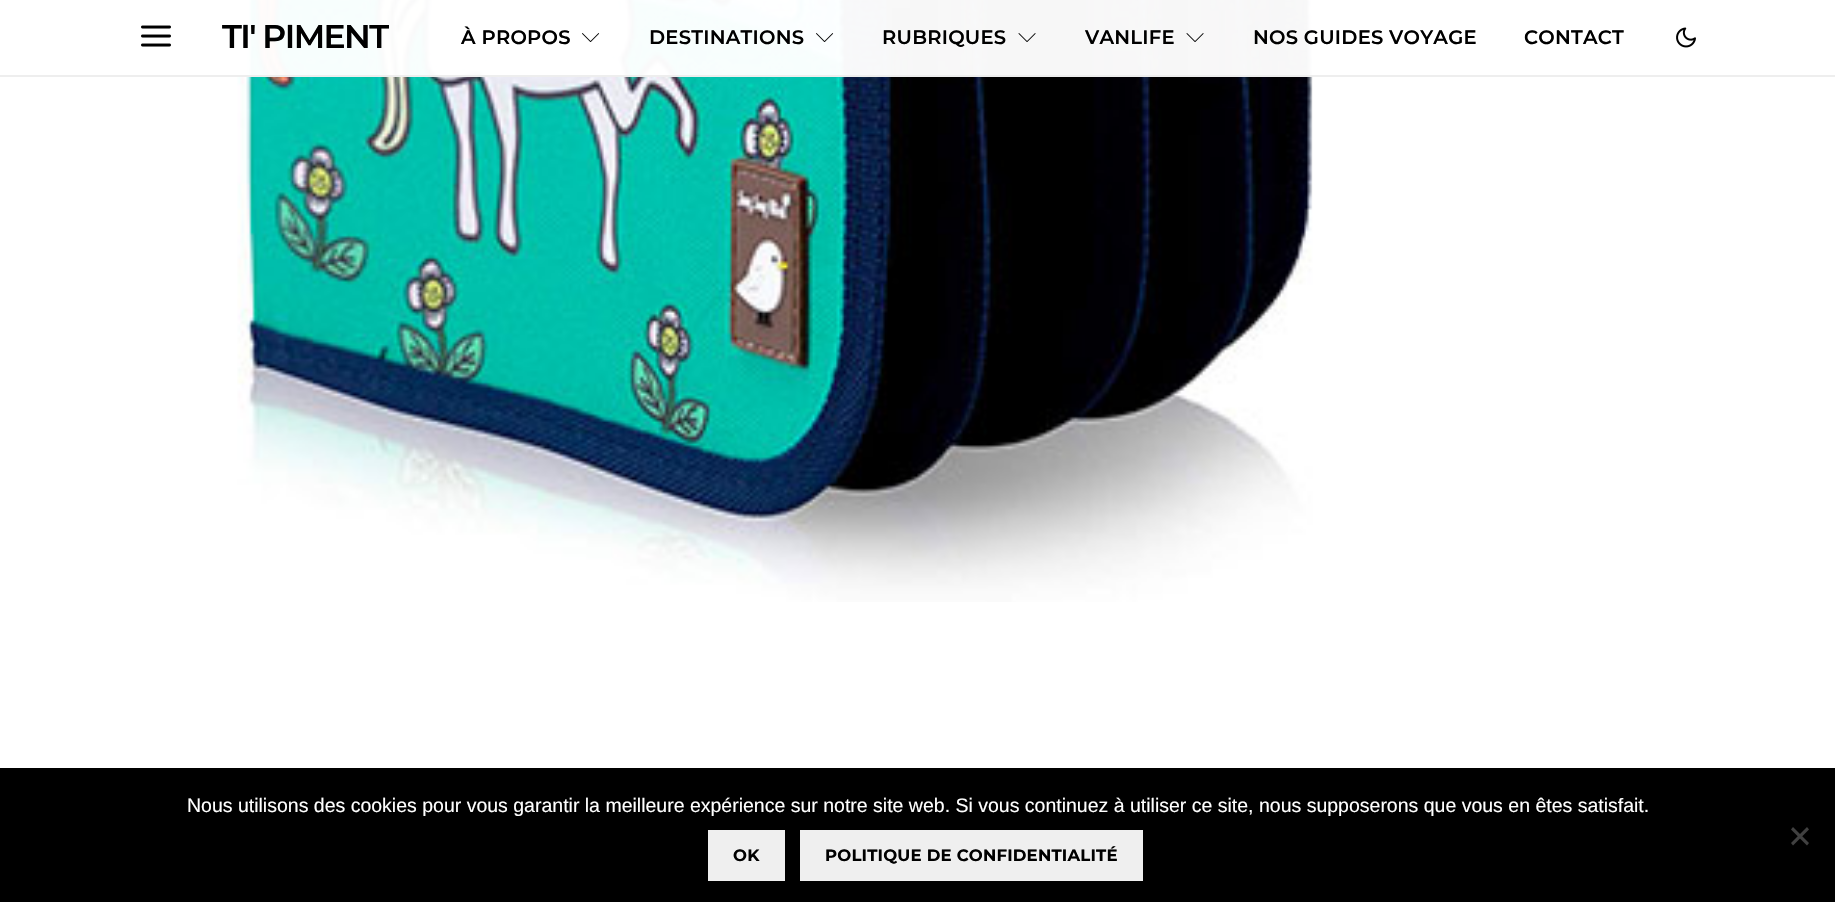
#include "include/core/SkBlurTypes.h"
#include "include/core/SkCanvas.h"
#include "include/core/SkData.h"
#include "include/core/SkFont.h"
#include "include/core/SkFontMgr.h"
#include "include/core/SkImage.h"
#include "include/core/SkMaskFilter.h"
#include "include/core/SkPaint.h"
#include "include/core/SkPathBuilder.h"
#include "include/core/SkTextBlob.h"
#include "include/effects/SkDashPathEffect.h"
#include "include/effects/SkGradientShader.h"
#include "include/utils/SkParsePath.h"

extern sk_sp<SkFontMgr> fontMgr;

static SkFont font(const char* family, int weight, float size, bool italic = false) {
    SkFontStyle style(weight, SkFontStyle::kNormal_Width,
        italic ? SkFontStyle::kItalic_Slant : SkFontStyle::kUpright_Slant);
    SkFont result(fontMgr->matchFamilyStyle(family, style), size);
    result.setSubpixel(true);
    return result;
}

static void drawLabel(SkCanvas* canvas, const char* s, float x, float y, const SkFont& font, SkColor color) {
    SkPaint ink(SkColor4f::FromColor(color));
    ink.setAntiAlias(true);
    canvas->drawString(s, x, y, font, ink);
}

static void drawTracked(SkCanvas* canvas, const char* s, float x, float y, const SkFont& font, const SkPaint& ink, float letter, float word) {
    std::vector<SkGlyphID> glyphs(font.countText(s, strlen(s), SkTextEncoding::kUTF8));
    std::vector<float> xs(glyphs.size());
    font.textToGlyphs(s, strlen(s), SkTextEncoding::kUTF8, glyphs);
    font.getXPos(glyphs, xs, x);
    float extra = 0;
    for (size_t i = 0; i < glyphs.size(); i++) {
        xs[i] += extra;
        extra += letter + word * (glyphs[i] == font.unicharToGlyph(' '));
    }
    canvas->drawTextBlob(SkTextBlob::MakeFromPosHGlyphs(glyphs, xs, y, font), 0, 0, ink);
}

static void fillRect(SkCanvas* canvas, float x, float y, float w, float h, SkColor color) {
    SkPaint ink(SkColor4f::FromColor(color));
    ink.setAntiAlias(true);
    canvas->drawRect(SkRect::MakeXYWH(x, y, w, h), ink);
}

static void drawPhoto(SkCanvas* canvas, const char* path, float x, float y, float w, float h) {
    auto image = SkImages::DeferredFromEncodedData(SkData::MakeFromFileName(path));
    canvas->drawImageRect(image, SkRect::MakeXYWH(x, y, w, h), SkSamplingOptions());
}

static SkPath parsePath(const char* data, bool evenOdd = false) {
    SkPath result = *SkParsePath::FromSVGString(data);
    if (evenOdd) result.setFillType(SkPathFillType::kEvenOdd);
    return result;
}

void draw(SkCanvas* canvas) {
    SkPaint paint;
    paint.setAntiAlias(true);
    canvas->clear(0xFFFFFFFF);
    drawPhoto(canvas, "assets/img1.png", 237, 0, 1076, 602);
    fillRect(canvas, 237, 0, 1076, 75, 0xF7FFFFFF);
    fillRect(canvas, 0, 75, 1835, 2, 0xFFEEEEEE);
    drawPhoto(canvas, "assets/img2.png", 141, 25, 30, 22);
    SkFont font1 = font("Montserrat", 600, 33);
    paint.setColor(0xFF000000);
    drawTracked(canvas, "TI' PIMENT", 222, 48, font1, paint, -1.6f, 0);
    SkFont font2 = font("Montserrat", 600, 19.5f);
    drawTracked(canvas, "À PROPOS", 461, 44, font2, paint, 0.25f, 0);
    drawPhoto(canvas, "assets/img3.png", 582, 33, 18, 9);
    drawTracked(canvas, "DESTINATIONS", 649, 44, font2, paint, 0.25f, 0);
    drawPhoto(canvas, "assets/img4.png", 816, 33, 18, 9);
    drawTracked(canvas, "RUBRIQUES", 882, 44, font2, paint, 0.25f, 0);
    drawPhoto(canvas, "assets/img5.png", 1018, 33, 18, 9);
    drawTracked(canvas, "VANLIFE", 1085, 44, font2, paint, 0.25f, 0);
    drawPhoto(canvas, "assets/img6.png", 1186, 33, 18, 9);
    drawTracked(canvas, "NOS GUIDES VOYAGE", 1253, 44, font2, paint, 0.25f, 0);
    drawTracked(canvas, "CONTACT", 1524, 44, font2, paint, 0.25f, 0);
    drawPhoto(canvas, "assets/img7.png", 1676, 27, 20, 21);
    fillRect(canvas, 0, 768, 1835, 134, 0xFF000000);
    SkFont font3 = font("Liberation Sans", 400, 19.5f);
    drawLabel(canvas, "Nous utilisons des cookies pour vous garantir la meilleure expérience sur notre site web. Si vous continuez à utiliser ce site, nous supposerons que vous en êtes satisfait.", 187, 812, font3, 0xFFFFFFFF);
    paint.setColor(0xFF404040);
    canvas->drawPath(parsePath("M1807 827L1809 829.5L1793 845.5L1791 843Z"), paint);
    canvas->drawPath(parsePath("M1791 829.5L1793 827L1809 843L1807 845.5Z"), paint);
    fillRect(canvas, 708, 830, 77, 51, 0xFFEFEFEF);
    SkFont font4 = font("Montserrat", 700, 16.5f);
    paint.setColor(0xFF000000);
    drawTracked(canvas, "OK", 733, 861, font4, paint, 0.2f, 0);
    fillRect(canvas, 800, 830, 343, 51, 0xFFEFEFEF);
    drawTracked(canvas, "POLITIQUE DE CONFIDENTIALITÉ", 825, 861, font4, paint, 0.2f, 0);
}
